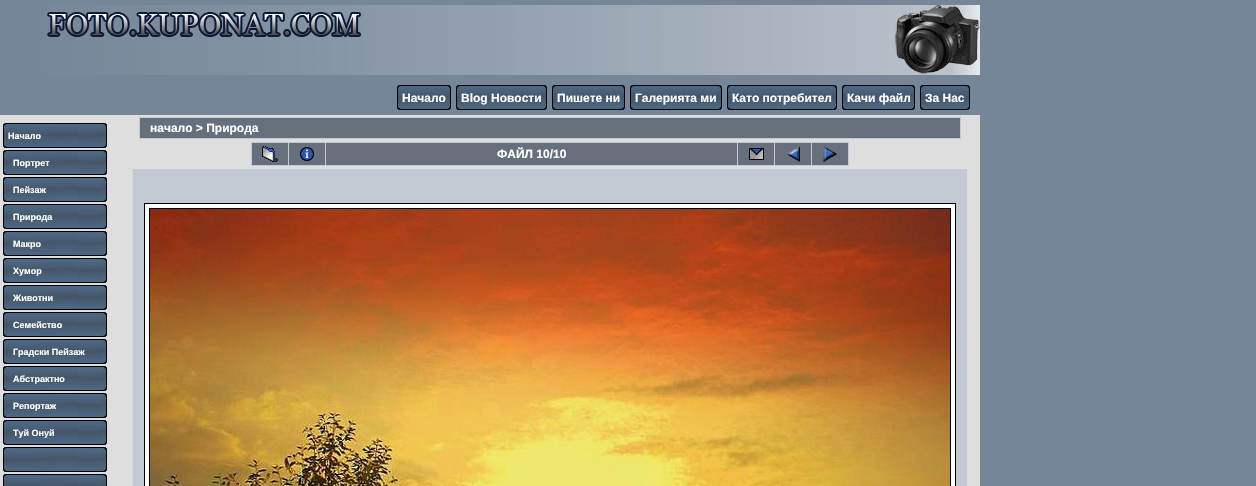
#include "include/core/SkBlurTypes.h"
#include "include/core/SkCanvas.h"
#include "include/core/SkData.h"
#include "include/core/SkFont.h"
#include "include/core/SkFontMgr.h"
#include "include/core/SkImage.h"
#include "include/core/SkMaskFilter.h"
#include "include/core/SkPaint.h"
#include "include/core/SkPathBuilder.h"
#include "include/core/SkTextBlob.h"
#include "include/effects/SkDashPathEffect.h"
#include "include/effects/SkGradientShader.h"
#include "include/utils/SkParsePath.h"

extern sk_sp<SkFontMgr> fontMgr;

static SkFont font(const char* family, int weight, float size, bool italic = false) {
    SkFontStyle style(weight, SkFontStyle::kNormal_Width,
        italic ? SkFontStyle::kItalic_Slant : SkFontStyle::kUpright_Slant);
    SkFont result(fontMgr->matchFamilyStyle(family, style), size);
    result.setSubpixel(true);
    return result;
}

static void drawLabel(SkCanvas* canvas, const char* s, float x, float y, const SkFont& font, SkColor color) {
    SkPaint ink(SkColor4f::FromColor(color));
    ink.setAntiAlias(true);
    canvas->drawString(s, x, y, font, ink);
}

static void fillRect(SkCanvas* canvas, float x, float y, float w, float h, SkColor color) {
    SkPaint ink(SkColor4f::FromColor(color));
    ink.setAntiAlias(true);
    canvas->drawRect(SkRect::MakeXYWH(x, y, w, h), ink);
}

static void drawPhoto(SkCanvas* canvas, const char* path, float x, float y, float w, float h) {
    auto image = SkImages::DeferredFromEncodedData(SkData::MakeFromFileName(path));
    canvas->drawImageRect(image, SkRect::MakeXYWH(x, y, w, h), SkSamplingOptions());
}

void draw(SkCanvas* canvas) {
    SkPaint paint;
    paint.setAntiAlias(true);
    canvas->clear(0xFF758698);
    fillRect(canvas, 0, 115, 980, 371, 0xFFDEDEDE);
    drawPhoto(canvas, "assets/img1.png", 47, 5, 933, 70);
    drawPhoto(canvas, "assets/img2.png", 397, 85, 5, 25);
    drawPhoto(canvas, "assets/img3.png", 402, 85, 44, 25);
    SkFont font1 = font("Liberation Sans", 700, 12);
    drawLabel(canvas, "Начало", 402, 102, font1, 0xFFFFFFFF);
    drawPhoto(canvas, "assets/img4.png", 446, 85, 5, 25);
    drawPhoto(canvas, "assets/img2.png", 456, 85, 5, 25);
    drawPhoto(canvas, "assets/img5.png", 461, 85, 81, 25);
    drawLabel(canvas, "Blog Новости", 461, 102, font1, 0xFFFFFFFF);
    drawPhoto(canvas, "assets/img4.png", 542, 85, 5, 25);
    drawPhoto(canvas, "assets/img2.png", 552, 85, 5, 25);
    drawPhoto(canvas, "assets/img6.png", 557, 85, 63, 25);
    drawLabel(canvas, "Пишете ни", 557, 102, font1, 0xFFFFFFFF);
    drawPhoto(canvas, "assets/img4.png", 620, 85, 5, 25);
    drawPhoto(canvas, "assets/img2.png", 630, 85, 5, 25);
    drawPhoto(canvas, "assets/img7.png", 635, 85, 82, 25);
    drawLabel(canvas, "Галерията ми", 635, 102, font1, 0xFFFFFFFF);
    drawPhoto(canvas, "assets/img4.png", 717, 85, 5, 25);
    drawPhoto(canvas, "assets/img2.png", 727, 85, 5, 25);
    drawPhoto(canvas, "assets/img8.png", 732, 85, 100, 25);
    drawLabel(canvas, "Като потребител", 732, 102, font1, 0xFFFFFFFF);
    drawPhoto(canvas, "assets/img4.png", 832, 85, 5, 25);
    drawPhoto(canvas, "assets/img2.png", 842, 85, 5, 25);
    drawPhoto(canvas, "assets/img9.png", 847, 85, 63, 25);
    drawLabel(canvas, "Качи файл", 847, 102, font1, 0xFFFFFFFF);
    drawPhoto(canvas, "assets/img4.png", 910, 85, 5, 25);
    drawPhoto(canvas, "assets/img2.png", 920, 85, 5, 25);
    drawPhoto(canvas, "assets/img10.png", 925, 85, 40, 25);
    drawLabel(canvas, "За Нас", 925, 102, font1, 0xFFFFFFFF);
    drawPhoto(canvas, "assets/img4.png", 965, 85, 5, 25);
    drawPhoto(canvas, "assets/img11.png", 3, 123, 5, 25);
    drawPhoto(canvas, "assets/img12.png", 8, 123, 94, 25);
    SkFont font2 = font("Liberation Sans", 700, 9);
    drawLabel(canvas, "Начало", 8, 139, font2, 0xFFFFFFFF);
    drawPhoto(canvas, "assets/img13.png", 102, 123, 5, 25);
    drawPhoto(canvas, "assets/img11.png", 3, 150, 5, 25);
    drawPhoto(canvas, "assets/img12.png", 8, 150, 94, 25);
    drawLabel(canvas, "Портрет", 13, 166, font2, 0xFFFFFFFF);
    drawPhoto(canvas, "assets/img13.png", 102, 150, 5, 25);
    drawPhoto(canvas, "assets/img11.png", 3, 177, 5, 25);
    drawPhoto(canvas, "assets/img12.png", 8, 177, 94, 25);
    drawLabel(canvas, "Пейзаж", 13, 193, font2, 0xFFFFFFFF);
    drawPhoto(canvas, "assets/img13.png", 102, 177, 5, 25);
    drawPhoto(canvas, "assets/img11.png", 3, 204, 5, 25);
    drawPhoto(canvas, "assets/img12.png", 8, 204, 94, 25);
    drawLabel(canvas, "Природа", 13, 220, font2, 0xFFFFFFFF);
    drawPhoto(canvas, "assets/img13.png", 102, 204, 5, 25);
    drawPhoto(canvas, "assets/img11.png", 3, 231, 5, 25);
    drawPhoto(canvas, "assets/img12.png", 8, 231, 94, 25);
    drawLabel(canvas, "Макро", 13, 247, font2, 0xFFFFFFFF);
    drawPhoto(canvas, "assets/img13.png", 102, 231, 5, 25);
    drawPhoto(canvas, "assets/img11.png", 3, 258, 5, 25);
    drawPhoto(canvas, "assets/img12.png", 8, 258, 94, 25);
    drawLabel(canvas, "Хумор", 13, 274, font2, 0xFFFFFFFF);
    drawPhoto(canvas, "assets/img13.png", 102, 258, 5, 25);
    drawPhoto(canvas, "assets/img11.png", 3, 285, 5, 25);
    drawPhoto(canvas, "assets/img12.png", 8, 285, 94, 25);
    drawLabel(canvas, "Животни", 13, 301, font2, 0xFFFFFFFF);
    drawPhoto(canvas, "assets/img13.png", 102, 285, 5, 25);
    drawPhoto(canvas, "assets/img11.png", 3, 312, 5, 25);
    drawPhoto(canvas, "assets/img12.png", 8, 312, 94, 25);
    drawLabel(canvas, "Семейство", 13, 328, font2, 0xFFFFFFFF);
    drawPhoto(canvas, "assets/img13.png", 102, 312, 5, 25);
    drawPhoto(canvas, "assets/img11.png", 3, 339, 5, 25);
    drawPhoto(canvas, "assets/img12.png", 8, 339, 94, 25);
    drawLabel(canvas, "Градски Пейзаж", 13, 355, font2, 0xFFFFFFFF);
    drawPhoto(canvas, "assets/img13.png", 102, 339, 5, 25);
    drawPhoto(canvas, "assets/img11.png", 3, 366, 5, 25);
    drawPhoto(canvas, "assets/img12.png", 8, 366, 94, 25);
    drawLabel(canvas, "Абстрактно", 13, 382, font2, 0xFFFFFFFF);
    drawPhoto(canvas, "assets/img13.png", 102, 366, 5, 25);
    drawPhoto(canvas, "assets/img11.png", 3, 393, 5, 25);
    drawPhoto(canvas, "assets/img12.png", 8, 393, 94, 25);
    drawLabel(canvas, "Репортаж", 13, 409, font2, 0xFFFFFFFF);
    drawPhoto(canvas, "assets/img13.png", 102, 393, 5, 25);
    drawPhoto(canvas, "assets/img11.png", 3, 420, 5, 25);
    drawPhoto(canvas, "assets/img12.png", 8, 420, 94, 25);
    drawLabel(canvas, "Туй Онуй", 13, 436, font2, 0xFFFFFFFF);
    drawPhoto(canvas, "assets/img13.png", 102, 420, 5, 25);
    drawPhoto(canvas, "assets/img11.png", 3, 447, 5, 25);
    drawPhoto(canvas, "assets/img12.png", 8, 447, 94, 25);
    drawPhoto(canvas, "assets/img13.png", 102, 447, 5, 25);
    drawPhoto(canvas, "assets/img14.png", 3, 474, 5, 12);
    drawPhoto(canvas, "assets/img15.png", 8, 474, 94, 12);
    drawPhoto(canvas, "assets/img16.png", 102, 474, 5, 12);
    fillRect(canvas, 139, 117, 822, 22, 0xFFC2C9D3);
    fillRect(canvas, 140, 118, 820, 20, 0xFF66707C);
    drawLabel(canvas, "начало > Природа", 150, 132, font1, 0xFFFFFFFF);
    fillRect(canvas, 251, 142, 598, 24, 0xFFC2C9D3);
    fillRect(canvas, 252, 143, 36, 22, 0xFF66707C);
    drawPhoto(canvas, "assets/img17.png", 262, 146, 16, 16);
    fillRect(canvas, 289, 143, 36, 22, 0xFF66707C);
    drawPhoto(canvas, "assets/img18.png", 300, 147, 14, 14);
    fillRect(canvas, 326, 143, 411, 22, 0xFF66707C);
    drawLabel(canvas, "ФАЙЛ 10/10", 497, 158, font1, 0xFFFFFFFF);
    fillRect(canvas, 738, 143, 36, 22, 0xFF66707C);
    drawPhoto(canvas, "assets/img19.png", 749, 148, 15, 12);
    fillRect(canvas, 775, 143, 36, 22, 0xFF66707C);
    drawPhoto(canvas, "assets/img20.png", 786, 146, 14, 16);
    fillRect(canvas, 812, 143, 36, 22, 0xFF66707C);
    drawPhoto(canvas, "assets/img21.png", 823, 146, 14, 16);
    fillRect(canvas, 133, 169, 834, 317, 0xFFC2C9D3);
    paint.setColor(0xFFFFFFFF);
    canvas->drawRect(SkRect::MakeXYWH(144.5f, 203.5f, 811, 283), paint);
    paint.setStroke(true);
    paint.setStrokeWidth(1);
    paint.setColor(0xFF000000);
    canvas->drawRect(SkRect::MakeXYWH(144.5f, 203.5f, 811, 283), paint);
    canvas->drawRect(SkRect::MakeXYWH(149.5f, 208.5f, 801, 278), paint);
    drawPhoto(canvas, "assets/img22.png", 150, 209, 800, 277);
}
